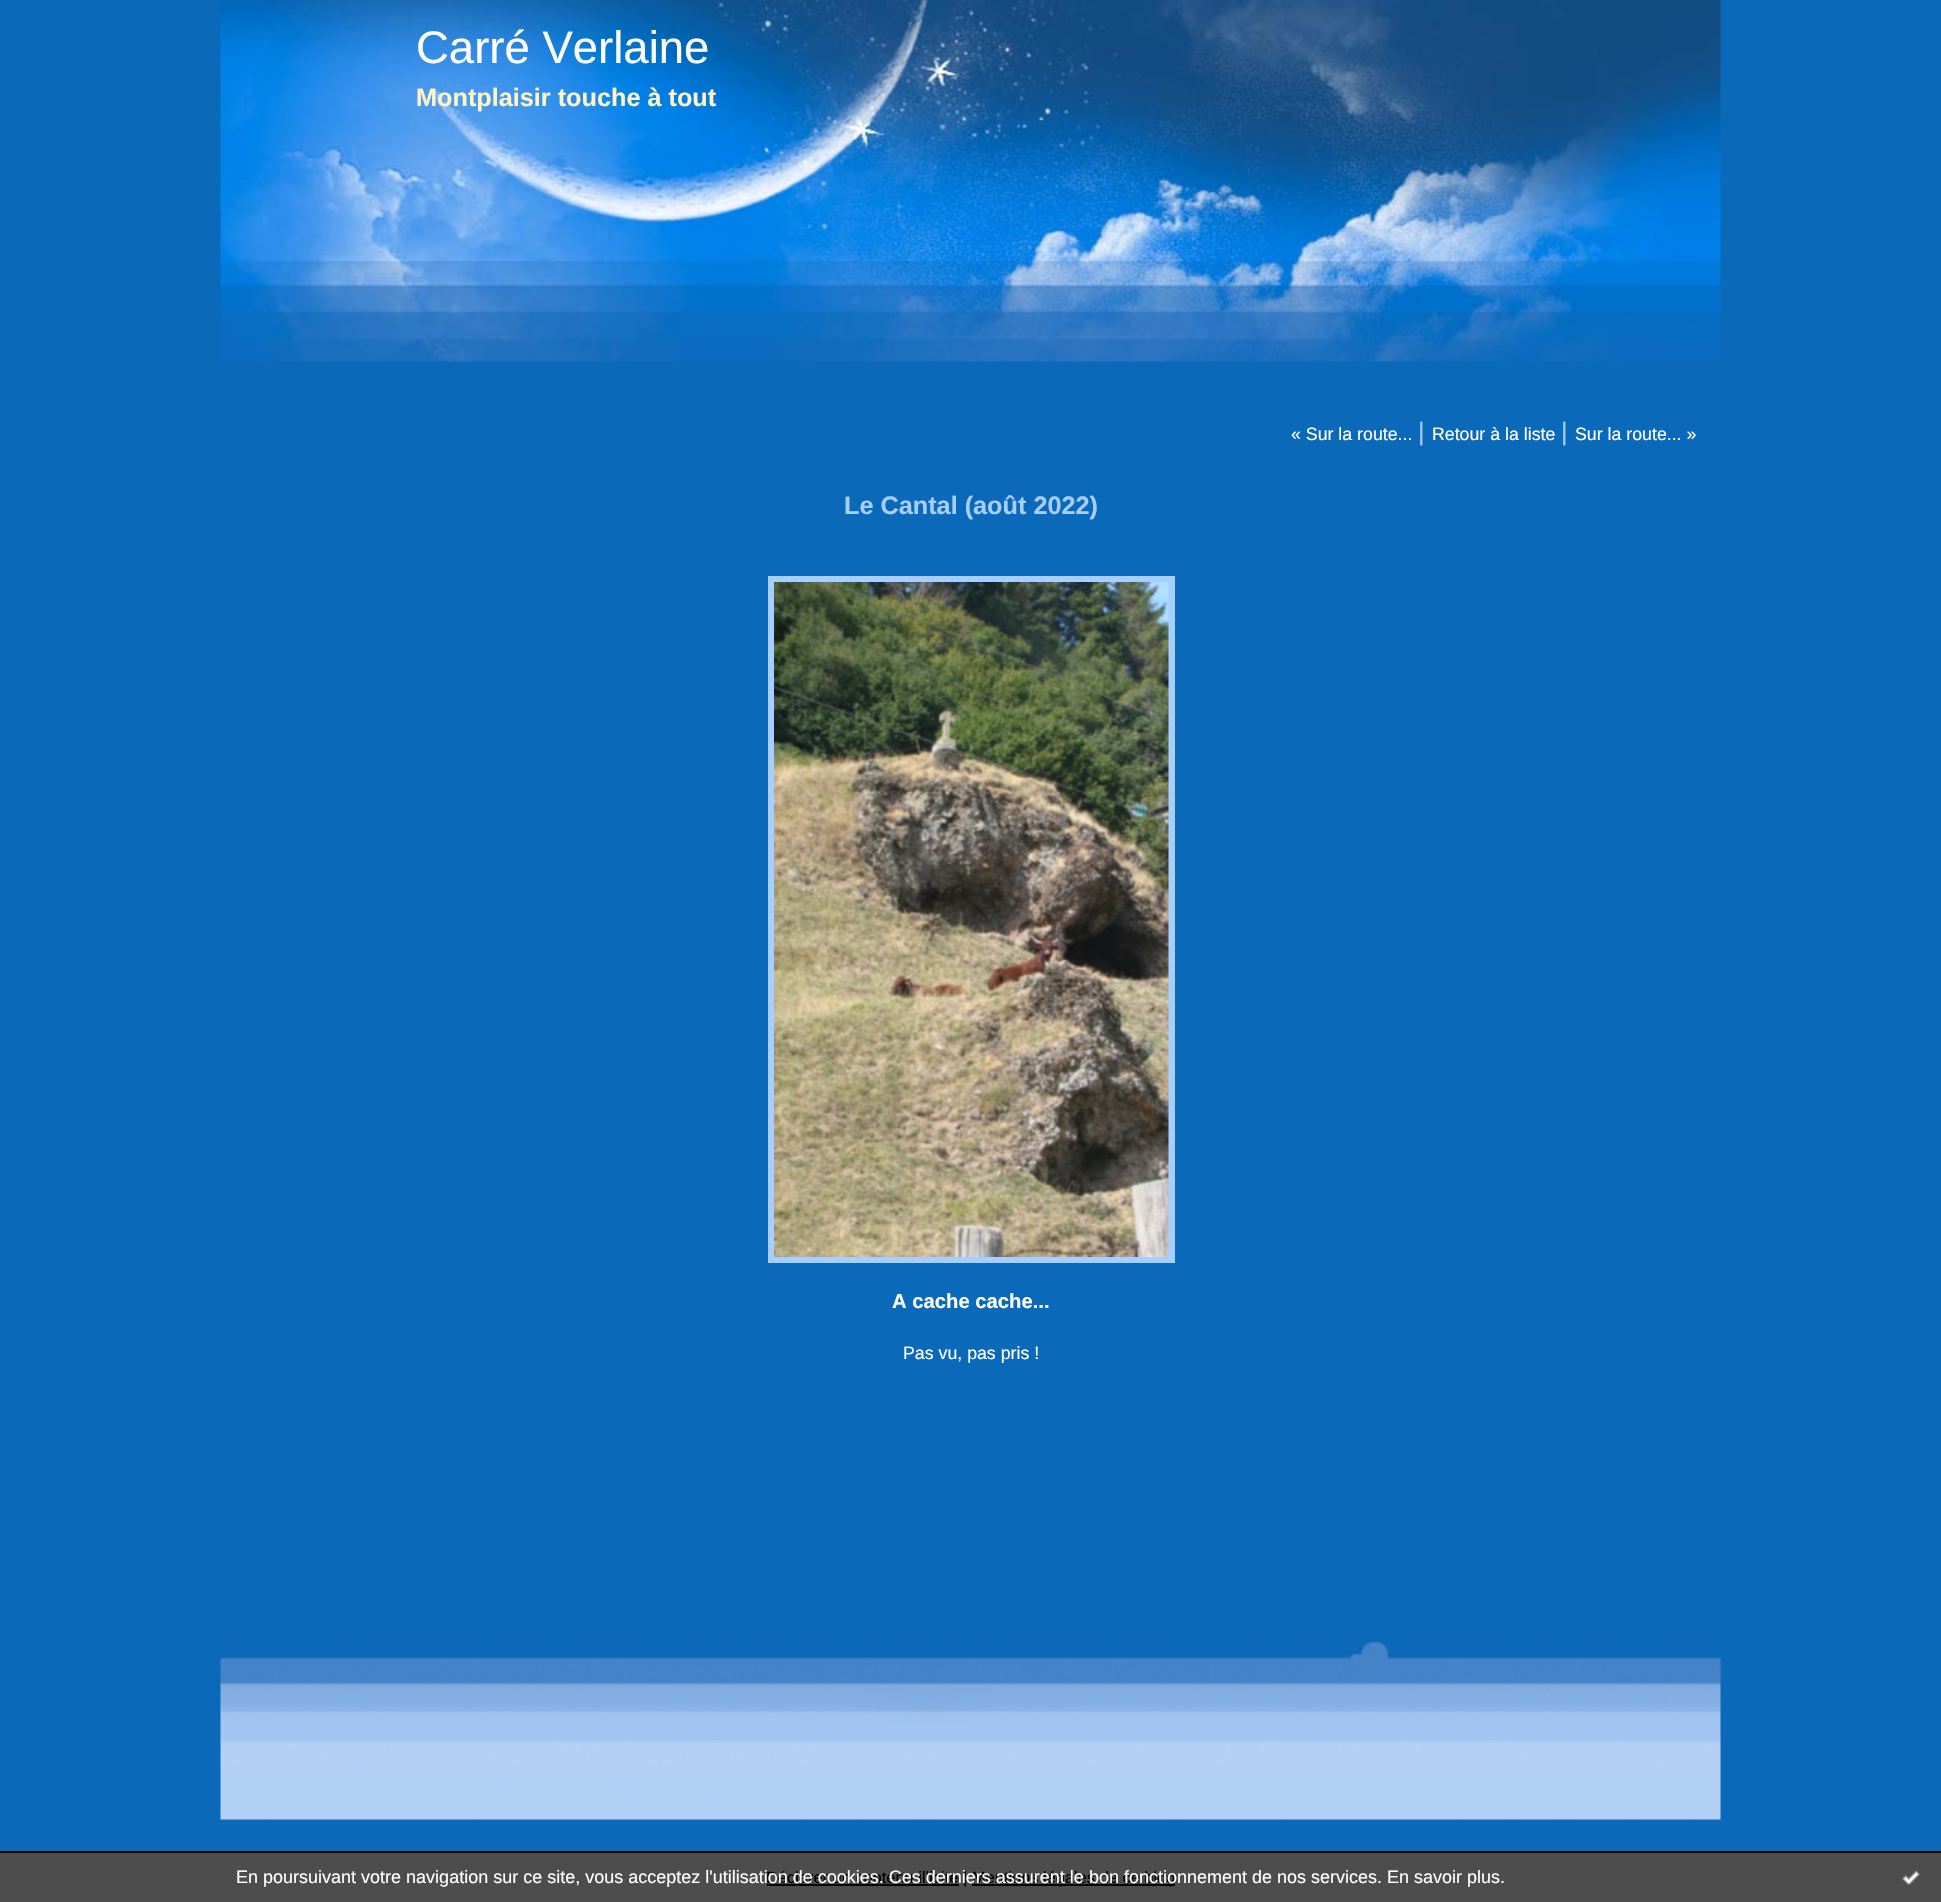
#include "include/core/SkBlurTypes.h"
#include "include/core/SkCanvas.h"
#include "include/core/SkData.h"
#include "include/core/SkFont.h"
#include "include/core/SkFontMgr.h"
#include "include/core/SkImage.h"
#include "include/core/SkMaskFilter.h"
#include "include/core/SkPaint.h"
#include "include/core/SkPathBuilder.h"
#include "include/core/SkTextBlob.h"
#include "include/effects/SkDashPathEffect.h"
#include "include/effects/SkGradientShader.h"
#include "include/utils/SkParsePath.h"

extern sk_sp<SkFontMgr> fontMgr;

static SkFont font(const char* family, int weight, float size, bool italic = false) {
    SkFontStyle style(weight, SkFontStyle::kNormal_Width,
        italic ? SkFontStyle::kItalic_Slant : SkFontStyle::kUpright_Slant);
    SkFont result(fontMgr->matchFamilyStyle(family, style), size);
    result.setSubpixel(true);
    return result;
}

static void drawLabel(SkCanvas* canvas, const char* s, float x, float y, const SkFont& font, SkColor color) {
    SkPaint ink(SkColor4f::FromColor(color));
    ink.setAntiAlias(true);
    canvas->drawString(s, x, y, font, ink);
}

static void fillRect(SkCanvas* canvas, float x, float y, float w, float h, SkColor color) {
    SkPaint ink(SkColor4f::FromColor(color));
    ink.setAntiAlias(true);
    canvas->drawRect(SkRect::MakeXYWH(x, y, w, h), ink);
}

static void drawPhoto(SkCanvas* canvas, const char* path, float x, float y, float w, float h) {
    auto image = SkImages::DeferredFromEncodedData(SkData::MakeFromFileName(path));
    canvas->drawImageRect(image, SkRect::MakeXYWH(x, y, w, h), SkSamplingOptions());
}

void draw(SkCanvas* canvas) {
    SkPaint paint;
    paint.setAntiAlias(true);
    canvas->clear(0xFF0B69B9);
    drawPhoto(canvas, "assets/img1.png", 220, 1641, 1501, 179);
    drawPhoto(canvas, "assets/img2.png", 220, 0, 1501, 362);
    SkFont font1 = font("Liberation Sans", 400, 45.5f);
    drawLabel(canvas, "Carré Verlaine", 416, 63, font1, 0xFFFFFFFF);
    SkFont font2 = font("Liberation Sans", 700, 25.25f);
    drawLabel(canvas, "Montplaisir touche à tout", 416, 106, font2, 0xFFFFF4C3);
    SkFont font3 = font("Liberation Sans", 400, 17.75f);
    drawLabel(canvas, "« Sur la route...", 1291, 440, font3, 0xFFFFFFFF);
    SkFont font4 = font("Liberation Sans", 400, 25.25f);
    drawLabel(canvas, "|", 1418, 440, font4, 0xFFA7CEFF);
    drawLabel(canvas, "Retour à la liste", 1432, 440, font3, 0xFFFFFFFF);
    drawLabel(canvas, "|", 1561, 440, font4, 0xFFA7CEFF);
    drawLabel(canvas, "Sur la route... »", 1575, 440, font3, 0xFFFFFFFF);
    drawLabel(canvas, "Le Cantal (août 2022)", 844, 514, font2, 0xFFA7CEFF);
    fillRect(canvas, 768, 576, 407, 687, 0xFFA7CEFF);
    drawPhoto(canvas, "assets/img3.png", 774, 582, 395, 675);
    SkFont font5 = font("Liberation Sans", 700, 20.25f);
    drawLabel(canvas, "A cache cache...", 892, 1308, font5, 0xFFFFFFFF);
    drawLabel(canvas, "Pas vu, pas pris !", 903, 1359, font3, 0xFFFFFFFF);
    fillRect(canvas, 0, 1853, 1941, 49, 0xFF4D4D4D);
    fillRect(canvas, 767, 1884, 192, 2, 0xFF000000);
    SkFont font6 = font("Liberation Sans", 400, 16.4f);
    drawLabel(canvas, "Déclarer un contenu illicite |", 766, 1883, font6, 0xFF000000);
    fillRect(canvas, 972, 1884, 203, 2, 0xFF000000);
    drawLabel(canvas, "Mentions légales de ce blog", 972, 1883, font6, 0xFF000000);
    SkFont font7 = font("Liberation Sans", 400, 18);
    drawLabel(canvas, "En poursuivant votre navigation sur ce site, vous acceptez l'utilisation de cookies. Ces derniers assurent le bon fonctionnement de nos services. En savoir plus.", 236, 1883, font7, 0xFFFFFFFF);
    drawPhoto(canvas, "assets/img4.png", 1902, 1870, 19, 15);
    fillRect(canvas, 0, 1851, 1941, 2, 0xFF000000);
}
